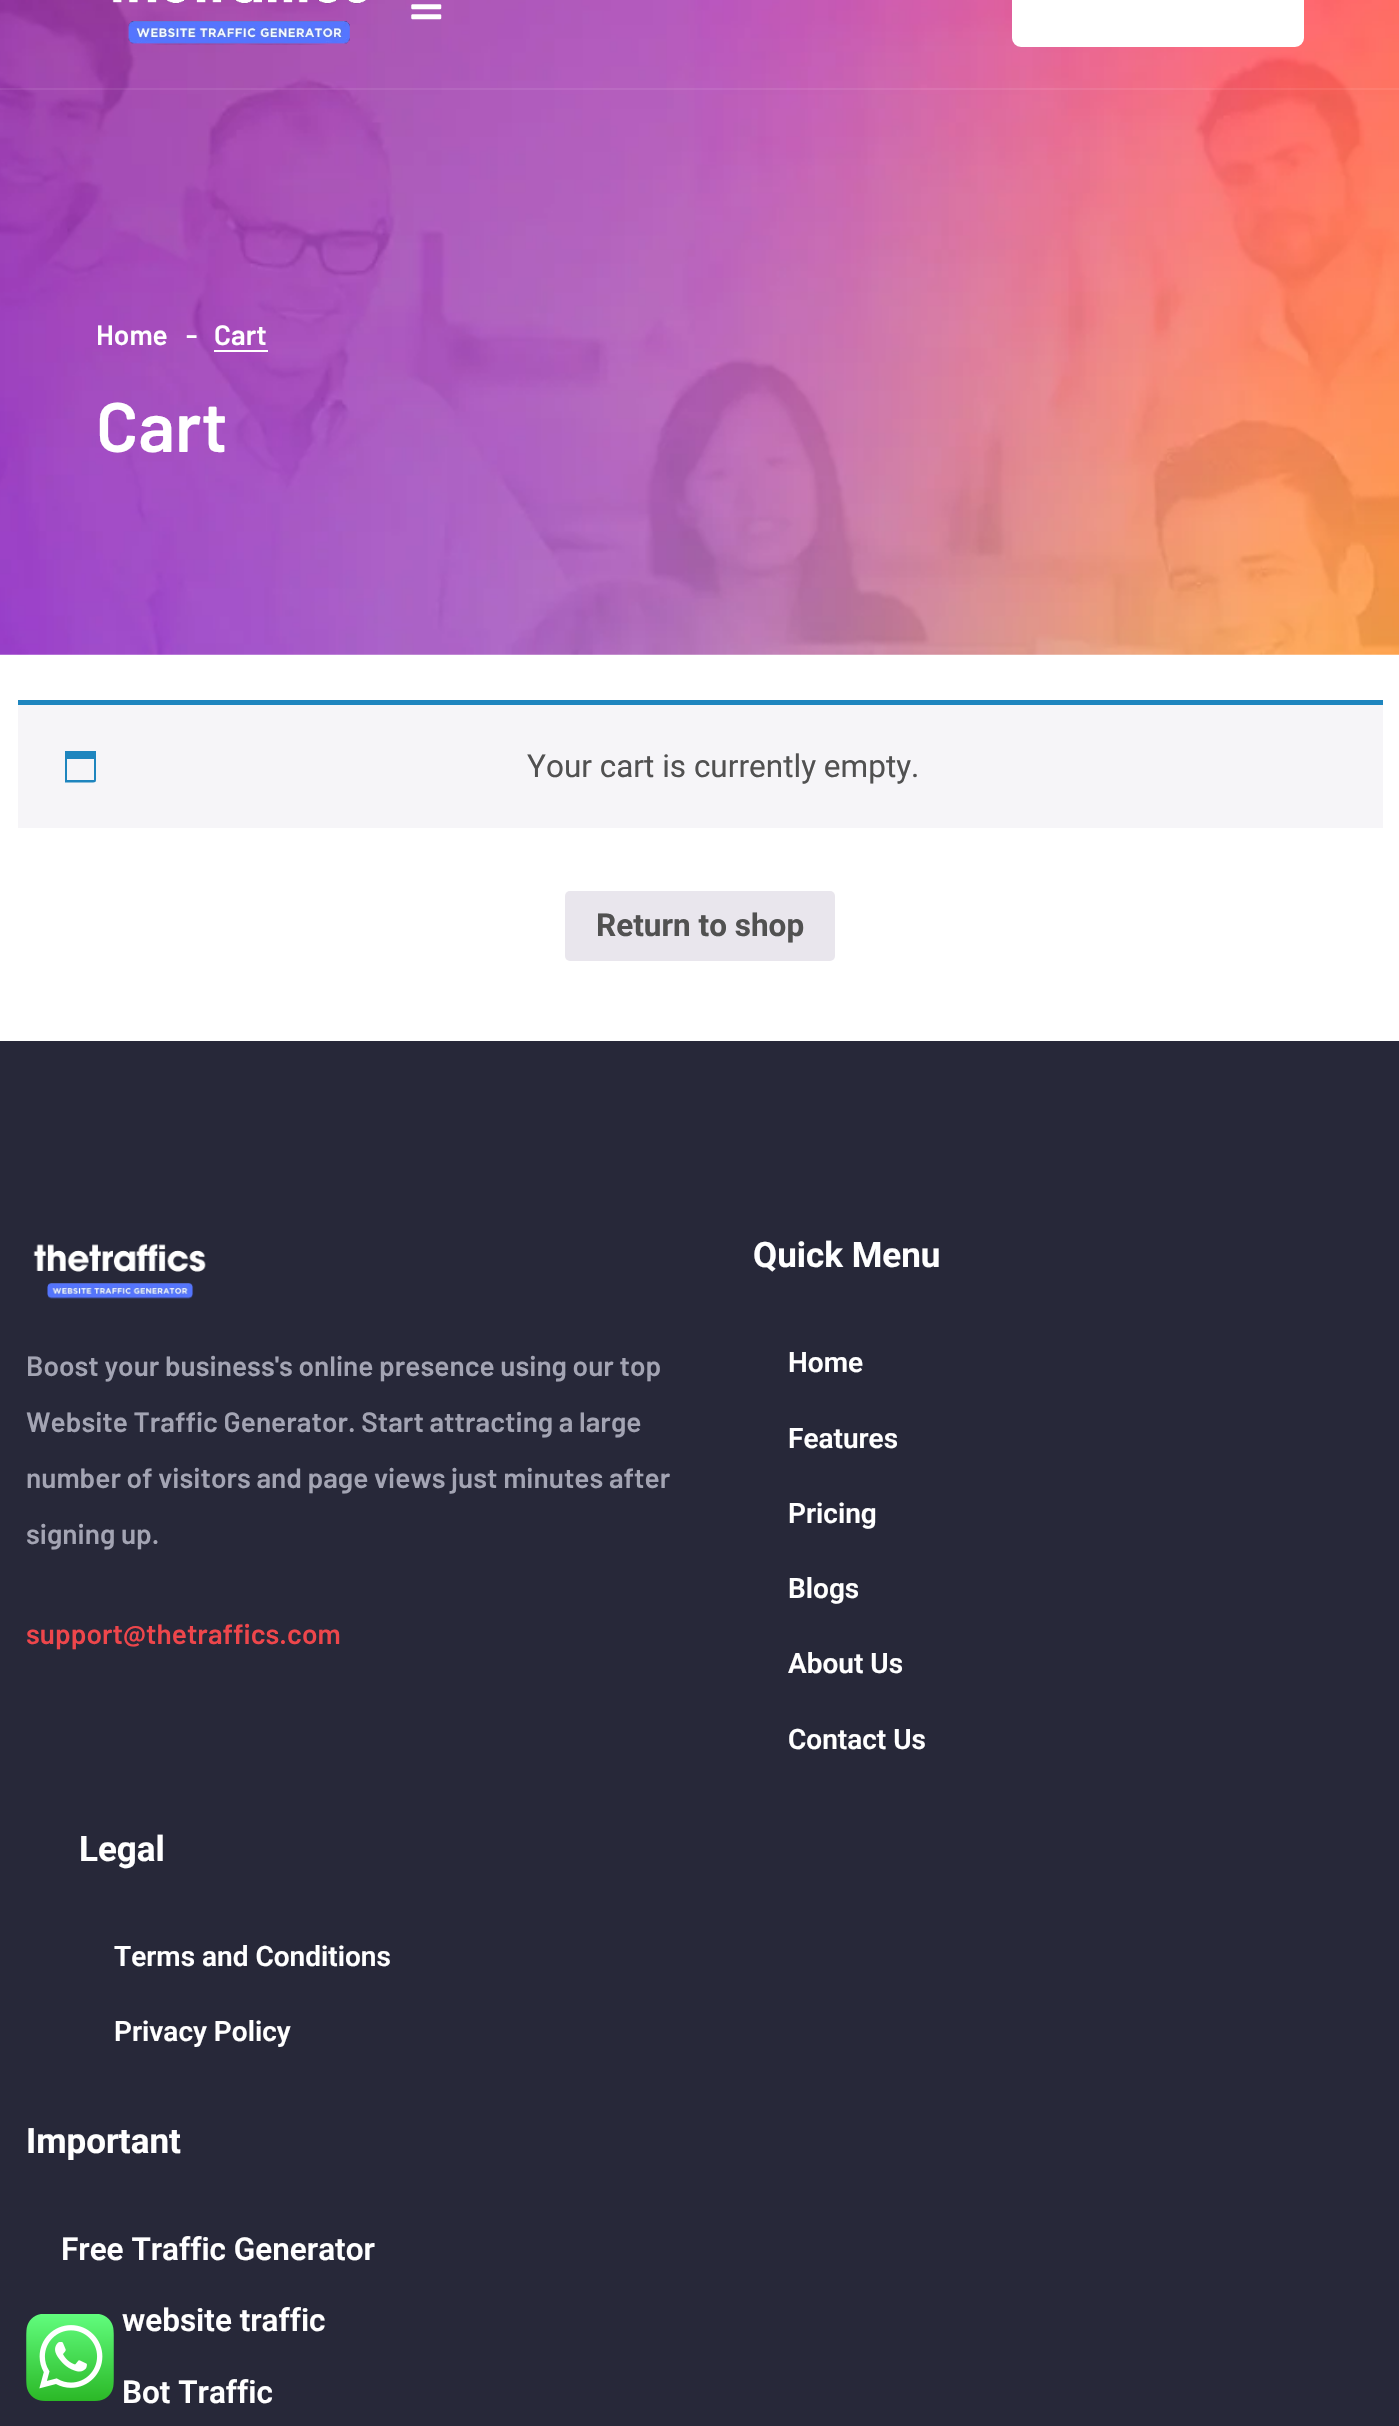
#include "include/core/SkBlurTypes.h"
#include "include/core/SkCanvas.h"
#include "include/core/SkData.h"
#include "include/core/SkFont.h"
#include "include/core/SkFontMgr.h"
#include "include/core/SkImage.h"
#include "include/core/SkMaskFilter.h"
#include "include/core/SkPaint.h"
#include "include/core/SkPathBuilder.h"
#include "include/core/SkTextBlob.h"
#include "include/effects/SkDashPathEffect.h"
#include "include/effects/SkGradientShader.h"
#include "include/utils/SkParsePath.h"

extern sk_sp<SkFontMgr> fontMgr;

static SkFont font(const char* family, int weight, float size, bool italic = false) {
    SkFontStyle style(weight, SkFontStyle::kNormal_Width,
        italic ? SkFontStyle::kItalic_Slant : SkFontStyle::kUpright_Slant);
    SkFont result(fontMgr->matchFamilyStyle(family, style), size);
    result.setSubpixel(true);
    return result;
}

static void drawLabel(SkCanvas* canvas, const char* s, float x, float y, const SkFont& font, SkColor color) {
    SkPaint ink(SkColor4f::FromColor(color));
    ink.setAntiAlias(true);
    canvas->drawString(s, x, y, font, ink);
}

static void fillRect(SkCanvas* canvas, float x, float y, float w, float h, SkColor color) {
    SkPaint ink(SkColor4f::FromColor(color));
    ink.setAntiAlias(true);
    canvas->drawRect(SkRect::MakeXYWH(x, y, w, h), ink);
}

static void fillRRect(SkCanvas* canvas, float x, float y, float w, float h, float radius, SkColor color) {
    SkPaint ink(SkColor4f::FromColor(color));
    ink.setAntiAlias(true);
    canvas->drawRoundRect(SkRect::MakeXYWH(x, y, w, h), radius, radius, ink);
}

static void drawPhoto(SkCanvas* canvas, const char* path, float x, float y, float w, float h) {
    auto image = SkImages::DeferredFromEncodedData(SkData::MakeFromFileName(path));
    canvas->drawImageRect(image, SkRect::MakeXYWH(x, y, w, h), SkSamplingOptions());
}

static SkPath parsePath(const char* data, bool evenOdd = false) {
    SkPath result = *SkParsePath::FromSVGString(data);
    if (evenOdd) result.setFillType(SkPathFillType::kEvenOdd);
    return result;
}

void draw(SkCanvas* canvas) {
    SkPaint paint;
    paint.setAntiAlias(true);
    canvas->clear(0xFFFFFFFF);
    drawPhoto(canvas, "assets/img3.png", 0, 0, 1399, 655);
    fillRect(canvas, 0, 88, 1399, 2, 0x14FFFFFF);
    drawPhoto(canvas, "assets/img1.png", 112, 0, 254, 45);
    drawPhoto(canvas, "assets/img2.png", 411, 4, 31, 16);
    paint.setColor(0xFFFFFFFF);
    canvas->drawRoundRect(SkRect::MakeXYWH(1014, -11, 288, 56), 7, 7, paint);
    paint.setStroke(true);
    paint.setStrokeWidth(4);
    canvas->drawRoundRect(SkRect::MakeXYWH(1014, -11, 288, 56), 7, 7, paint);
    SkFont font1 = font("Barlow", 600, 28);
    drawLabel(canvas, "Home", 96, 345, font1, 0xFFFFFFFF);
    drawLabel(canvas, "-", 186, 345, font1, 0xFFFFFFFF);
    drawLabel(canvas, "Cart", 214, 345, font1, 0xFFFFFFFF);
    fillRect(canvas, 214, 350, 54, 2, 0xFFFFFFFF);
    SkFont font2 = font("Barlow", 600, 70);
    drawLabel(canvas, "Cart", 96, 452, font2, 0xFFFFFFFF);
    fillRect(canvas, 18, 705, 1365, 123, 0xFFF6F5F8);
    fillRect(canvas, 18, 700, 1365, 5, 0xFF1E85BE);
    paint.setStroke(false);
    paint.setColor(0xFF1E85BE);
    canvas->drawPath(parsePath("M94 759H67V780H94ZM96 751V775C96 783 97 782.5 89 782.5H65V751Z"), paint);
    SkFont font3 = font("Roboto", 400, 31.5f);
    drawLabel(canvas, "Your cart is currently empty.", 527, 777, font3, 0xFF515151);
    fillRRect(canvas, 565, 891, 270, 70, 5, 0xFFE9E6ED);
    SkFont font4 = font("Roboto", 700, 31.5f);
    drawLabel(canvas, "Return to shop", 596, 936, font4, 0xFF515151);
    fillRect(canvas, 0, 1041, 1399, 1385, 0xFF272839);
    drawPhoto(canvas, "assets/img4.png", 33, 1244, 173, 55);
    drawLabel(canvas, "Boost your business's online presence using our top", 26, 1376, font1, 0xFFA3A4B3);
    drawLabel(canvas, "Website Traffic Generator. Start attracting a large", 26, 1432, font1, 0xFFA3A4B3);
    drawLabel(canvas, "number of visitors and page views just minutes after", 26, 1488, font1, 0xFFA3A4B3);
    drawLabel(canvas, "signing up.", 26, 1544, font1, 0xFFA3A4B3);
    drawLabel(canvas, "support@thetraffics.com", 26, 1644, font1, 0xFFEE464B);
    SkFont font5 = font("Roboto", 700, 35);
    drawLabel(canvas, "Quick Menu", 753, 1267, font5, 0xFFFFFFFF);
    SkFont font6 = font("Roboto", 600, 28);
    drawLabel(canvas, "Home", 788, 1372, font6, 0xFFFFFFFF);
    drawLabel(canvas, "Features", 788, 1448, font6, 0xFFFFFFFF);
    drawLabel(canvas, "Pricing", 788, 1523, font6, 0xFFFFFFFF);
    drawLabel(canvas, "Blogs", 788, 1598, font6, 0xFFFFFFFF);
    drawLabel(canvas, "About Us", 788, 1673, font6, 0xFFFFFFFF);
    drawLabel(canvas, "Contact Us", 788, 1749, font6, 0xFFFFFFFF);
    drawLabel(canvas, "Legal", 79, 1861, font5, 0xFFFFFFFF);
    drawLabel(canvas, "Terms and Conditions", 114, 1966, font6, 0xFFFFFFFF);
    drawLabel(canvas, "Privacy Policy", 114, 2041, font6, 0xFFFFFFFF);
    drawLabel(canvas, "Important", 26, 2153, font5, 0xFFFFFFFF);
    SkFont font7 = font("Roboto", 600, 31.5f);
    drawLabel(canvas, "Free Traffic Generator", 61, 2260, font7, 0xFFFFFFFF);
    drawLabel(canvas, "website traffic", 122, 2331, font7, 0xFFFFFFFF);
    drawLabel(canvas, "Bot Traffic", 122, 2403, font7, 0xFFFFFFFF);
    drawPhoto(canvas, "assets/img5.png", 26, 2314, 88, 87);
}
